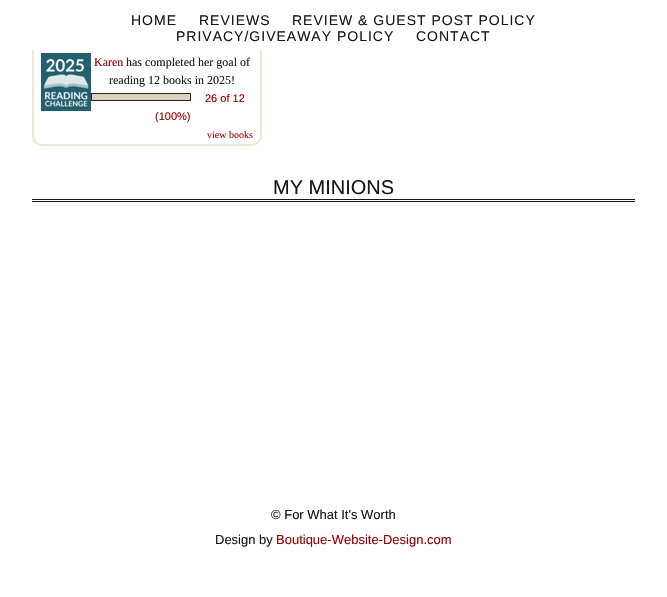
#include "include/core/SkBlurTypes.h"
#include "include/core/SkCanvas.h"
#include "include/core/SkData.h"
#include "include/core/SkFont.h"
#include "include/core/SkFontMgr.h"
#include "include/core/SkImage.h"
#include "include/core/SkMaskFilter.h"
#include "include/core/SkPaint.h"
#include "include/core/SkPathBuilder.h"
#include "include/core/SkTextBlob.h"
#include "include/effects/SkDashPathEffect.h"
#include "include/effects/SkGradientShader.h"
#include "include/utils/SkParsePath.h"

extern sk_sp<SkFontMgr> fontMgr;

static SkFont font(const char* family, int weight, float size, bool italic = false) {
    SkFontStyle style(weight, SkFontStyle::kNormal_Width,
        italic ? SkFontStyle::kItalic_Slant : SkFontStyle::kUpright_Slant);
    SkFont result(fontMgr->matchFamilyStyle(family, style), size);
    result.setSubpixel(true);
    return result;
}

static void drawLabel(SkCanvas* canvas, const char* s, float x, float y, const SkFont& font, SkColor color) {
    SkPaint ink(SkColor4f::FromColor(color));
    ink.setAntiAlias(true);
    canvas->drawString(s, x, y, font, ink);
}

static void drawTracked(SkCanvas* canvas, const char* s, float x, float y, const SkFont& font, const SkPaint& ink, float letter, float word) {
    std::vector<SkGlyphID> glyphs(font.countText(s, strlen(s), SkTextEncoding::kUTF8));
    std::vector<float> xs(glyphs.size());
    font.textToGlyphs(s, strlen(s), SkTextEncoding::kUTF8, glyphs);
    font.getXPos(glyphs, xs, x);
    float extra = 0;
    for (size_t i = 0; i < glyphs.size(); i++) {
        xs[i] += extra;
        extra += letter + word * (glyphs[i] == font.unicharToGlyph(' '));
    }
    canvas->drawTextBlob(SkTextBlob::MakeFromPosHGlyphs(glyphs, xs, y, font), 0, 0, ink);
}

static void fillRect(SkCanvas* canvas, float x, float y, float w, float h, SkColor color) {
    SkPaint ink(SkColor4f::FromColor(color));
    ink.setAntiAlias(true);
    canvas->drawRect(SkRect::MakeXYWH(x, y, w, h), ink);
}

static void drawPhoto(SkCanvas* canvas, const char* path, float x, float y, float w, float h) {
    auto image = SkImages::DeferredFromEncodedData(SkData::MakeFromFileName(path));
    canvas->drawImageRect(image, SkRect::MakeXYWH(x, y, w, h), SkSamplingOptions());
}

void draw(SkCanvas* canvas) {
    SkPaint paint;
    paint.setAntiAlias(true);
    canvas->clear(0xFFFFFFFF);
    paint.setStroke(true);
    paint.setStrokeWidth(2);
    paint.setColor(0xFFEBE8D5);
    canvas->drawRoundRect(SkRect::MakeXYWH(33, -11, 228, 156), 9, 9, paint);
    fillRect(canvas, 32, 0, 230, 50, 0xFFFFFFFF);
    SkFont font1 = font("Liberation Sans", 400, 14);
    paint.setStroke(false);
    paint.setColor(0xFF171717);
    drawTracked(canvas, "HOME", 131, 25, font1, paint, 1, 0);
    drawTracked(canvas, "REVIEWS", 199, 25, font1, paint, 1, 0);
    drawTracked(canvas, "REVIEW & GUEST POST POLICY", 292, 25, font1, paint, 1, 0);
    drawTracked(canvas, "PRIVACY/GIVEAWAY POLICY", 176, 41, font1, paint, 1, 0);
    drawTracked(canvas, "CONTACT", 416, 41, font1, paint, 1, 0);
    drawPhoto(canvas, "assets/img1.png", 41, 53, 50, 58);
    SkFont font2 = font("Liberation Serif", 400, 12);
    drawLabel(canvas, "Karen", 94, 66, font2, 0xFF990000);
    drawLabel(canvas, "has completed her goal of", 126, 66, font2, 0xFF171717);
    drawLabel(canvas, "reading 12 books in 2025!", 109, 84, font2, 0xFF171717);
    paint.setStroke(true);
    paint.setStrokeWidth(1);
    paint.setColor(0xFF382110);
    canvas->drawRect(SkRect::MakeXYWH(91.5f, 93.5f, 99, 7), paint);
    fillRect(canvas, 92, 94, 98, 6, 0xFFD7D2C4);
    SkFont font3 = font("Liberation Sans", 400, 11);
    drawLabel(canvas, "26 of 12", 205, 102, font3, 0xFF990000);
    drawLabel(canvas, "(100%)", 155, 120, font3, 0xFF990000);
    SkFont font4 = font("Liberation Serif", 400, 10);
    drawLabel(canvas, "view books", 207, 138, font4, 0xFF990000);
    fillRect(canvas, 32, 199, 603, 1, 0xFF171717);
    fillRect(canvas, 32, 201, 603, 1, 0xFF171717);
    SkFont font5 = font("Liberation Sans", 400, 20);
    drawLabel(canvas, "MY MINIONS", 273, 194, font5, 0xFF171717);
    SkFont font6 = font("Liberation Sans", 400, 13);
    drawLabel(canvas, "© For What It's Worth", 271, 519, font6, 0xFF171717);
    drawLabel(canvas, "Design by", 215, 544, font6, 0xFF171717);
    drawLabel(canvas, "Boutique-Website-Design.com", 276, 544, font6, 0xFF990000);
}
